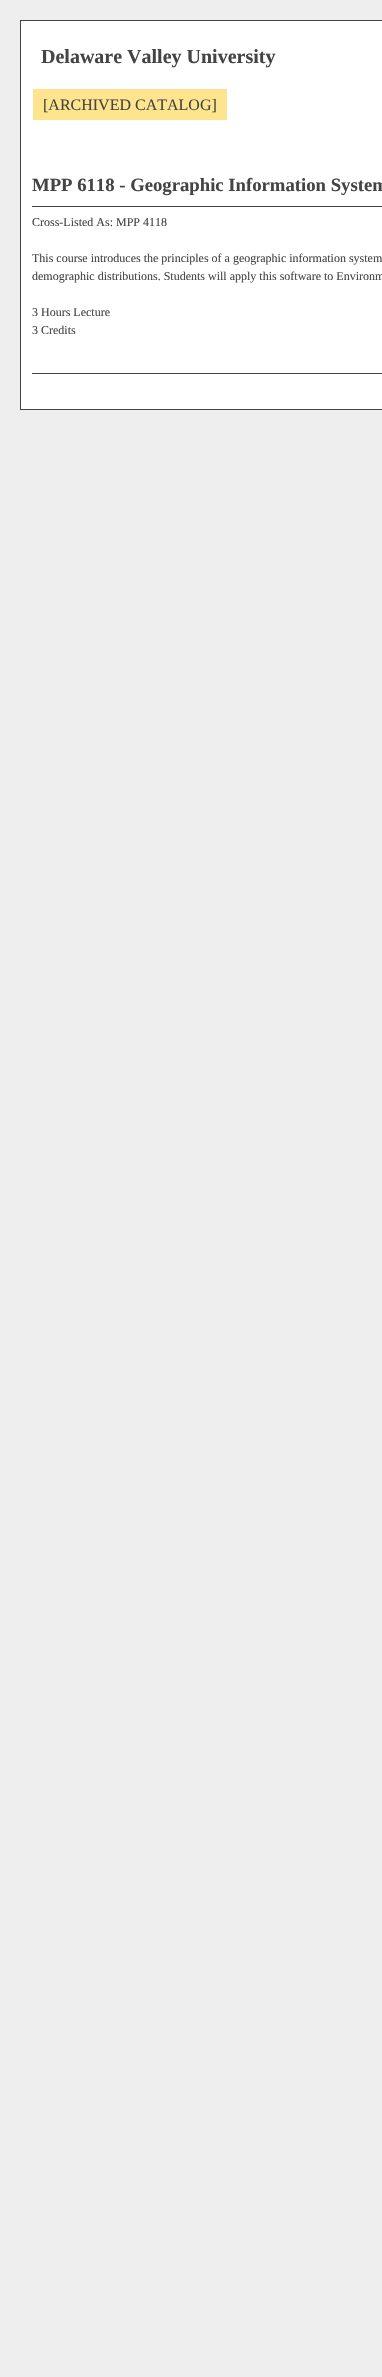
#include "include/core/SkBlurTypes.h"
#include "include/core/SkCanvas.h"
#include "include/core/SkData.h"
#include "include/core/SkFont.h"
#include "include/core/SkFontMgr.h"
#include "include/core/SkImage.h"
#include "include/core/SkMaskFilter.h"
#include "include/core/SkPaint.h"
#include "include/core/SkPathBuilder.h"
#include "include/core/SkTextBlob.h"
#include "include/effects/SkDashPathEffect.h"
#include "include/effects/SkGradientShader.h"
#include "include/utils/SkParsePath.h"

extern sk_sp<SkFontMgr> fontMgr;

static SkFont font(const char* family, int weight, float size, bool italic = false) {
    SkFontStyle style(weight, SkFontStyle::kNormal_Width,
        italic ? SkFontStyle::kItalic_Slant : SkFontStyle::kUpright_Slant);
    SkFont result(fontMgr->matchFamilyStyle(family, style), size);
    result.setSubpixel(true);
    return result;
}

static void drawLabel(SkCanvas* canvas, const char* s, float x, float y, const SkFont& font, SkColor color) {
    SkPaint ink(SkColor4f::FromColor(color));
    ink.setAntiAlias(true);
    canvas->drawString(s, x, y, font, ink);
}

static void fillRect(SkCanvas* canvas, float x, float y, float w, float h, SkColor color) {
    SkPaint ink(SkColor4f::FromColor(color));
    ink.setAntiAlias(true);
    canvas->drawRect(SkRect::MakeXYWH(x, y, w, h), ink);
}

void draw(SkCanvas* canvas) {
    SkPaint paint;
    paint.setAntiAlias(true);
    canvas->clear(0xFFEEEEEE);
    paint.setColor(0xFFFFFFFF);
    canvas->drawRect(SkRect::MakeXYWH(20.5f, 20.5f, 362, 389), paint);
    paint.setStroke(true);
    paint.setStrokeWidth(1);
    paint.setColor(0xFF444444);
    canvas->drawRect(SkRect::MakeXYWH(20.5f, 20.5f, 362, 389), paint);
    SkFont font1 = font("Liberation Serif", 700, 20);
    drawLabel(canvas, "Delaware Valley University", 41, 63, font1, 0xFF444444);
    fillRect(canvas, 33, 89, 194, 31, 0xFFFFE48E);
    SkFont font2 = font("Liberation Serif", 400, 16);
    drawLabel(canvas, "[ARCHIVED CATALOG]", 43, 110, font2, 0xFF444444);
    SkFont font3 = font("Liberation Serif", 700, 18.7f);
    drawLabel(canvas, "MPP 6118 - Geographic Information System", 32, 191, font3, 0xFF444444);
    fillRect(canvas, 32, 206, 350, 1, 0xFF444444);
    SkFont font4 = font("Liberation Serif", 400, 12);
    drawLabel(canvas, "Cross-Listed As: MPP 4118", 32, 226, font4, 0xFF444444);
    drawLabel(canvas, "This course introduces the principles of a geographic information system", 32, 262, font4, 0xFF444444);
    drawLabel(canvas, "demographic distributions. Students will apply this software to Environm", 32, 280, font4, 0xFF444444);
    drawLabel(canvas, "3 Hours Lecture", 32, 316, font4, 0xFF444444);
    drawLabel(canvas, "3 Credits", 32, 334, font4, 0xFF444444);
    fillRect(canvas, 32, 373, 350, 1, 0xFF444444);
}
